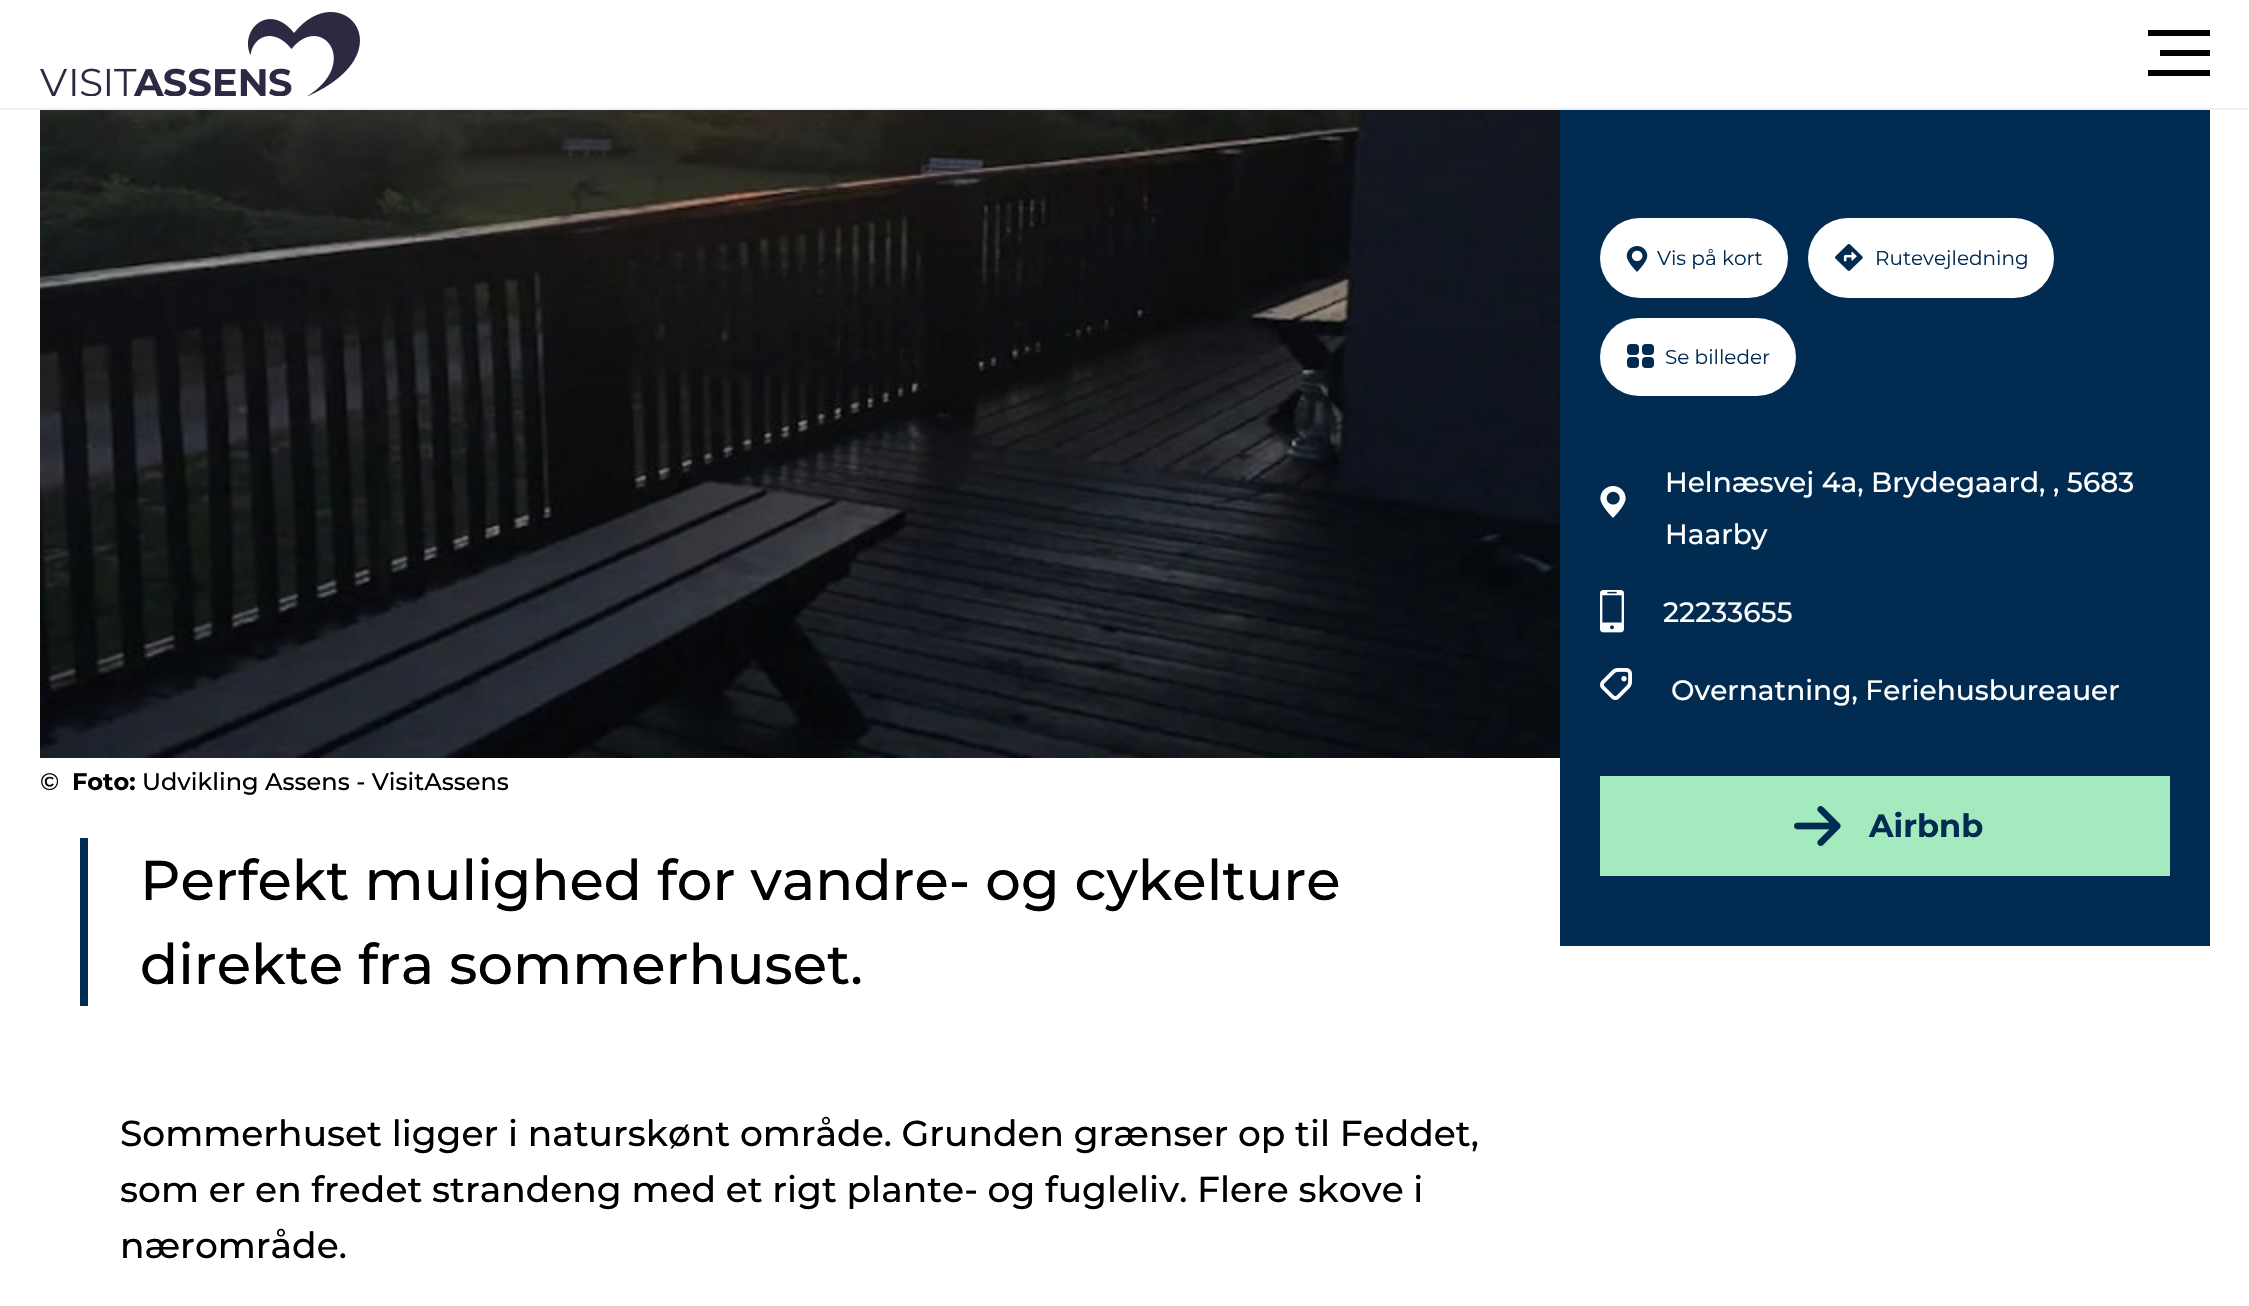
#include "include/core/SkBlurTypes.h"
#include "include/core/SkCanvas.h"
#include "include/core/SkData.h"
#include "include/core/SkFont.h"
#include "include/core/SkFontMgr.h"
#include "include/core/SkImage.h"
#include "include/core/SkMaskFilter.h"
#include "include/core/SkPaint.h"
#include "include/core/SkPathBuilder.h"
#include "include/core/SkTextBlob.h"
#include "include/effects/SkDashPathEffect.h"
#include "include/effects/SkGradientShader.h"
#include "include/utils/SkParsePath.h"

extern sk_sp<SkFontMgr> fontMgr;

static SkFont font(const char* family, int weight, float size, bool italic = false) {
    SkFontStyle style(weight, SkFontStyle::kNormal_Width,
        italic ? SkFontStyle::kItalic_Slant : SkFontStyle::kUpright_Slant);
    SkFont result(fontMgr->matchFamilyStyle(family, style), size);
    result.setSubpixel(true);
    return result;
}

static void drawLabel(SkCanvas* canvas, const char* s, float x, float y, const SkFont& font, SkColor color) {
    SkPaint ink(SkColor4f::FromColor(color));
    ink.setAntiAlias(true);
    canvas->drawString(s, x, y, font, ink);
}

static void fillRect(SkCanvas* canvas, float x, float y, float w, float h, SkColor color) {
    SkPaint ink(SkColor4f::FromColor(color));
    ink.setAntiAlias(true);
    canvas->drawRect(SkRect::MakeXYWH(x, y, w, h), ink);
}

static void fillRRect(SkCanvas* canvas, float x, float y, float w, float h, float radius, SkColor color) {
    SkPaint ink(SkColor4f::FromColor(color));
    ink.setAntiAlias(true);
    canvas->drawRoundRect(SkRect::MakeXYWH(x, y, w, h), radius, radius, ink);
}

static void drawPhoto(SkCanvas* canvas, const char* path, float x, float y, float w, float h) {
    auto image = SkImages::DeferredFromEncodedData(SkData::MakeFromFileName(path));
    canvas->drawImageRect(image, SkRect::MakeXYWH(x, y, w, h), SkSamplingOptions());
}

void draw(SkCanvas* canvas) {
    SkPaint paint;
    paint.setAntiAlias(true);
    canvas->clear(0xFFFFFFFF);
    fillRect(canvas, 0, 108, 2249, 2, 0xFFF0F1F3);
    drawPhoto(canvas, "assets/img1.png", 40, 12, 320, 84);
    fillRect(canvas, 2148, 30, 62, 6, 0xFF000000);
    fillRect(canvas, 2160, 50, 50, 6, 0xFF000000);
    fillRect(canvas, 2148, 70, 62, 6, 0xFF000000);
    fillRect(canvas, 1560, 110, 650, 836, 0xFF022B52);
    drawPhoto(canvas, "assets/img2.png", 40, 110, 1520, 648);
    SkFont font1 = font("Montserrat", 500, 24);
    drawLabel(canvas, "©", 40, 790, font1, 0xFF000000);
    SkFont font2 = font("Montserrat", 700, 24);
    drawLabel(canvas, "Foto:", 72, 790, font2, 0xFF000000);
    drawLabel(canvas, "Udvikling Assens - VisitAssens", 142, 790, font1, 0xFF000000);
    fillRRect(canvas, 1600, 218, 188, 80, 40, 0xFFFFFFFF);
    drawPhoto(canvas, "assets/img3.png", 1626, 246, 22, 26);
    SkFont font3 = font("Montserrat", 400, 20);
    drawLabel(canvas, "Vis på kort", 1657, 265, font3, 0xFF022B52);
    fillRRect(canvas, 1808, 218, 246, 80, 40, 0xFFFFFFFF);
    drawPhoto(canvas, "assets/img4.png", 1835, 244, 28, 27);
    drawLabel(canvas, "Rutevejledning", 1875, 265, font3, 0xFF022B52);
    fillRRect(canvas, 1600, 318, 196, 78, 39, 0xFFFFFFFF);
    fillRRect(canvas, 1642, 344, 12, 11, 4, 0xFF022B52);
    fillRRect(canvas, 1642, 357, 12, 11, 4, 0xFF022B52);
    fillRRect(canvas, 1627, 344, 12, 11, 4, 0xFF022B52);
    fillRRect(canvas, 1627, 357, 12, 11, 4, 0xFF022B52);
    drawLabel(canvas, "Se billeder", 1665, 364, font3, 0xFF022B52);
    drawPhoto(canvas, "assets/img5.png", 1600, 486, 26, 32);
    SkFont font4 = font("Montserrat", 500, 28);
    drawLabel(canvas, "Helnæsvej 4a, Brydegaard, , 5683", 1665, 492, font4, 0xFFFFFFFF);
    drawLabel(canvas, "Haarby", 1665, 544, font4, 0xFFFFFFFF);
    drawPhoto(canvas, "assets/img6.png", 1600, 590, 24, 43);
    drawLabel(canvas, "22233655", 1663, 622, font4, 0xFFFFFFFF);
    drawPhoto(canvas, "assets/img7.png", 1600, 668, 32, 32);
    drawLabel(canvas, "Overnatning, Feriehusbureauer", 1671, 700, font4, 0xFFFFFFFF);
    fillRect(canvas, 1600, 776, 570, 100, 0xFFA3EABF);
    drawPhoto(canvas, "assets/img8.png", 1794, 806, 47, 40);
    SkFont font5 = font("Montserrat", 700, 32);
    drawLabel(canvas, "Airbnb", 1869, 837, font5, 0xFF022B52);
    fillRect(canvas, 80, 838, 8, 168, 0xFF022B52);
    SkFont font6 = font("Montserrat", 500, 56);
    drawLabel(canvas, "Perfekt mulighed for vandre- og cykelture", 140, 900, font6, 0xFF000000);
    drawLabel(canvas, "direkte fra sommerhuset.", 140, 984, font6, 0xFF000000);
    SkFont font7 = font("Montserrat", 500, 36);
    drawLabel(canvas, "Sommerhuset ligger i naturskønt område. Grunden grænser op til Feddet,", 120, 1146, font7, 0xFF000000);
    drawLabel(canvas, "som er en fredet strandeng med et rigt plante- og fugleliv. Flere skove i", 120, 1202, font7, 0xFF000000);
    drawLabel(canvas, "nærområde.", 120, 1258, font7, 0xFF000000);
}
